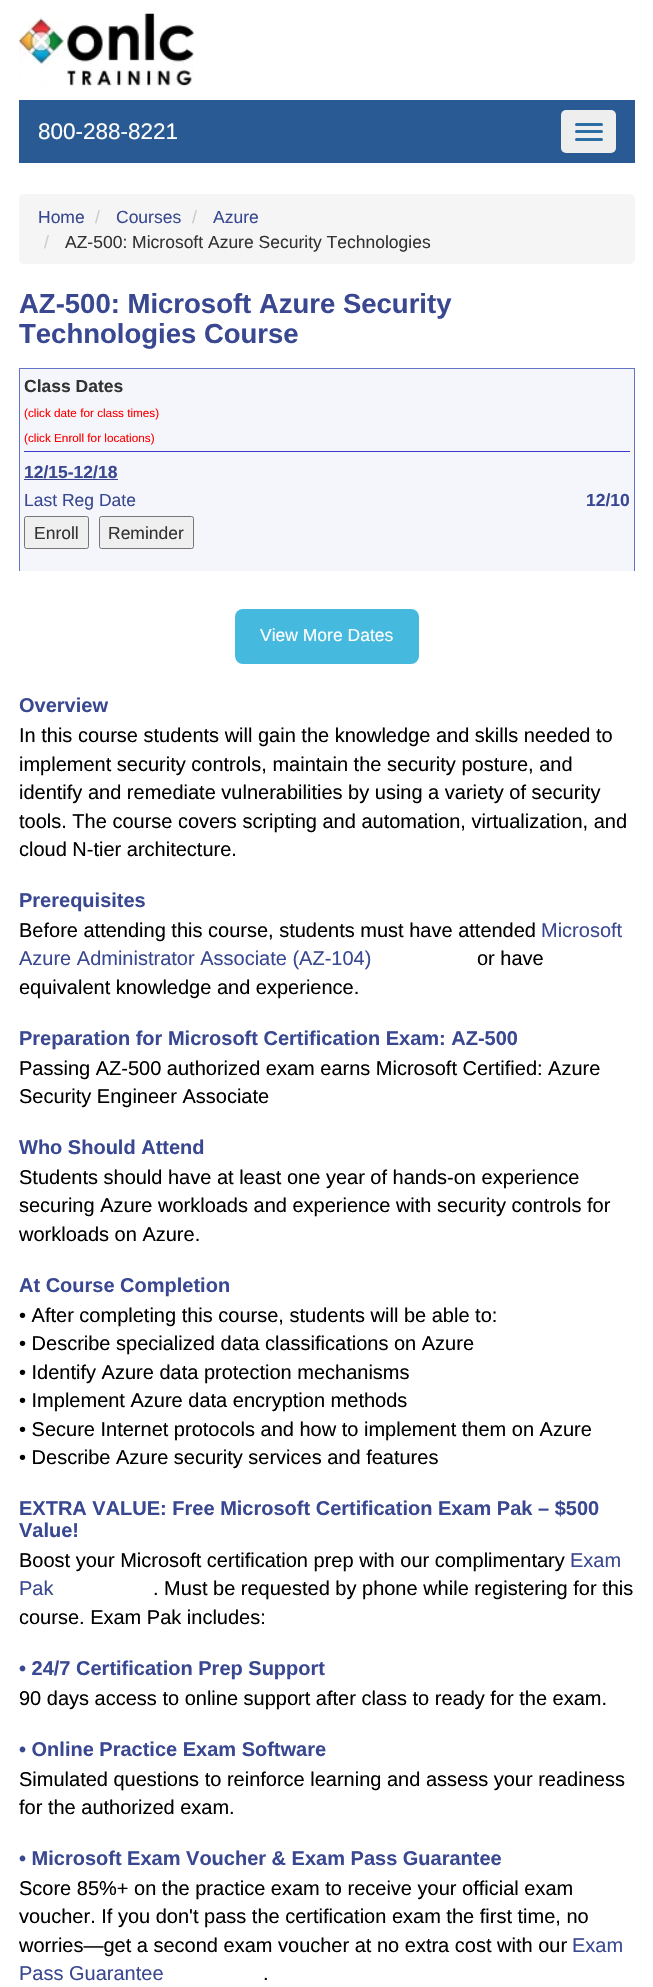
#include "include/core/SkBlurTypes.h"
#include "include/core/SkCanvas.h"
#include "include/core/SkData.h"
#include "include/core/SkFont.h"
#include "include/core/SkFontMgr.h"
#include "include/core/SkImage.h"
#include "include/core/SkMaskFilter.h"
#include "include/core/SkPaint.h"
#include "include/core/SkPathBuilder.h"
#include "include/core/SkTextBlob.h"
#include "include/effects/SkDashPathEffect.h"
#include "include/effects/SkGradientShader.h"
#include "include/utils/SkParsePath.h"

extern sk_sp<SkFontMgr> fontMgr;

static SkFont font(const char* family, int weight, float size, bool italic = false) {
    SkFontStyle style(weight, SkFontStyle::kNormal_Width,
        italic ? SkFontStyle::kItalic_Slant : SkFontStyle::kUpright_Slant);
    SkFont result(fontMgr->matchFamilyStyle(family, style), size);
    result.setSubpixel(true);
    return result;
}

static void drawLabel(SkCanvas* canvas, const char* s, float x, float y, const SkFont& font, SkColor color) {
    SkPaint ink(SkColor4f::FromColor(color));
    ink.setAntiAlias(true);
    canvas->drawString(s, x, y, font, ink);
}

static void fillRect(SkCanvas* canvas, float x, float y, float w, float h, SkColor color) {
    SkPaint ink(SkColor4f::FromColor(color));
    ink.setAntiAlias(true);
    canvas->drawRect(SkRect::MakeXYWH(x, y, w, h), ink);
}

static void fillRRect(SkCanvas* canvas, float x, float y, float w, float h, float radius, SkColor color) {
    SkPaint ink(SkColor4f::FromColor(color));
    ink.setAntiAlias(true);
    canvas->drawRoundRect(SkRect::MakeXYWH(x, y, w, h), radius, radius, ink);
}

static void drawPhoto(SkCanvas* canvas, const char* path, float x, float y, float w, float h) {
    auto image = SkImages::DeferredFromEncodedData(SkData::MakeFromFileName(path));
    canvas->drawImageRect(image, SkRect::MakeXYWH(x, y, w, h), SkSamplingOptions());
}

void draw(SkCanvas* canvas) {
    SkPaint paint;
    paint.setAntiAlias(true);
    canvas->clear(0xFFFFFFFF);
    drawPhoto(canvas, "assets/img1.png", 18, 10, 176, 76);
    fillRect(canvas, 19, 100, 616, 63, 0xFF295A94);
    SkFont font1 = font("Liberation Sans", 400, 22.5f);
    drawLabel(canvas, "800-288-8221", 38, 139, font1, 0xFFFFFFFF);
    fillRRect(canvas, 561, 110, 55, 43, 5, 0xFFEEEEEE);
    fillRRect(canvas, 575, 123, 28, 3, 1.5f, 0xFF2C6DA4);
    fillRRect(canvas, 575, 130, 28, 3, 1.5f, 0xFF2C6DA4);
    fillRRect(canvas, 575, 138, 28, 3, 1.5f, 0xFF2C6DA4);
    fillRRect(canvas, 19, 194, 616, 70, 5, 0xFFF5F5F5);
    SkFont font2 = font("Liberation Sans", 400, 17.5f);
    drawLabel(canvas, "Home", 38, 223, font2, 0xFF394891);
    drawLabel(canvas, "/", 95, 223, font2, 0xFFCCCCCC);
    drawLabel(canvas, "Courses", 116, 223, font2, 0xFF394891);
    drawLabel(canvas, "/", 192, 223, font2, 0xFFCCCCCC);
    drawLabel(canvas, "Azure", 213, 223, font2, 0xFF394891);
    drawLabel(canvas, "/", 44, 248, font2, 0xFFCCCCCC);
    drawLabel(canvas, "AZ-500: Microsoft Azure Security Technologies", 65, 248, font2, 0xFF333333);
    SkFont font3 = font("Liberation Sans", 700, 27.5f);
    drawLabel(canvas, "AZ-500: Microsoft Azure Security", 19, 313, font3, 0xFF394891);
    drawLabel(canvas, "Technologies Course", 19, 343, font3, 0xFF394891);
    fillRect(canvas, 20, 369, 614, 202, 0xFFF5F6FB);
    canvas->save();
    canvas->clipRect(SkRect::MakeXYWH(0, 175, 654, 396));
    paint.setStroke(true);
    paint.setStrokeWidth(1);
    paint.setColor(0xFF6373C6);
    canvas->drawRect(SkRect::MakeXYWH(19.5f, 368.5f, 615, 619), paint);
    canvas->restore();
    SkFont font4 = font("Liberation Sans", 700, 17.5f);
    drawLabel(canvas, "Class Dates", 24, 392, font4, 0xFF333333);
    SkFont font5 = font("Liberation Sans", 400, 11.75f);
    drawLabel(canvas, "(click date for class times)", 24, 417, font5, 0xFFFF0000);
    drawLabel(canvas, "(click Enroll for locations)", 24, 442, font5, 0xFFFF0000);
    fillRect(canvas, 24, 451, 606, 1, 0xFF3939CC);
    drawLabel(canvas, "12/15-12/18", 24, 478, font4, 0xFF394891);
    fillRect(canvas, 24, 479, 94, 1, 0xFF394891);
    drawLabel(canvas, "Last Reg Date", 24, 506, font2, 0xFF394891);
    drawLabel(canvas, "12/10", 586, 506, font4, 0xFF394891);
    paint.setStroke(false);
    paint.setColor(0xFFEFEFEF);
    canvas->drawRoundRect(SkRect::MakeXYWH(24.5f, 516.5f, 64, 32), 2, 2, paint);
    paint.setStroke(true);
    paint.setColor(0xFF767676);
    canvas->drawRoundRect(SkRect::MakeXYWH(24.5f, 516.5f, 64, 32), 2, 2, paint);
    drawLabel(canvas, "Enroll", 34, 539, font2, 0xFF333333);
    paint.setStroke(false);
    paint.setColor(0xFFEFEFEF);
    canvas->drawRoundRect(SkRect::MakeXYWH(99.5f, 516.5f, 94, 32), 2, 2, paint);
    paint.setStroke(true);
    paint.setColor(0xFF767676);
    canvas->drawRoundRect(SkRect::MakeXYWH(99.5f, 516.5f, 94, 32), 2, 2, paint);
    drawLabel(canvas, "Reminder", 108, 539, font2, 0xFF333333);
    fillRRect(canvas, 235, 609, 184, 55, 8, 0xFF45BADE);
    drawLabel(canvas, "View More Dates", 260, 641, font2, 0xFFFFFFFF);
    SkFont font6 = font("Liberation Sans", 700, 20);
    drawLabel(canvas, "Overview", 19, 712, font6, 0xFF394891);
    SkFont font7 = font("Liberation Sans", 400, 20);
    drawLabel(canvas, "In this course students will gain the knowledge and skills needed to", 19, 742, font7, 0xFF000000);
    drawLabel(canvas, "implement security controls, maintain the security posture, and", 19, 771, font7, 0xFF000000);
    drawLabel(canvas, "identify and remediate vulnerabilities by using a variety of security", 19, 799, font7, 0xFF000000);
    drawLabel(canvas, "tools. The course covers scripting and automation, virtualization, and", 19, 828, font7, 0xFF000000);
    drawLabel(canvas, "cloud N-tier architecture.", 19, 856, font7, 0xFF000000);
    drawLabel(canvas, "Prerequisites", 19, 907, font6, 0xFF394891);
    drawLabel(canvas, "Before attending this course, students must have attended", 19, 937, font7, 0xFF000000);
    drawLabel(canvas, "Microsoft", 541, 937, font7, 0xFF394891);
    drawLabel(canvas, "Azure Administrator Associate (AZ-104)", 19, 965, font7, 0xFF394891);
    drawLabel(canvas, "or have", 477, 965, font7, 0xFF000000);
    drawLabel(canvas, "equivalent knowledge and experience.", 19, 994, font7, 0xFF000000);
    drawLabel(canvas, "Preparation for Microsoft Certification Exam: AZ-500", 19, 1045, font6, 0xFF394891);
    drawLabel(canvas, "Passing AZ-500 authorized exam earns Microsoft Certified: Azure", 19, 1075, font7, 0xFF000000);
    drawLabel(canvas, "Security Engineer Associate", 19, 1103, font7, 0xFF000000);
    drawLabel(canvas, "Who Should Attend", 19, 1154, font6, 0xFF394891);
    drawLabel(canvas, "Students should have at least one year of hands-on experience", 19, 1184, font7, 0xFF000000);
    drawLabel(canvas, "securing Azure workloads and experience with security controls for", 19, 1212, font7, 0xFF000000);
    drawLabel(canvas, "workloads on Azure.", 19, 1241, font7, 0xFF000000);
    drawLabel(canvas, "At Course Completion", 19, 1292, font6, 0xFF394891);
    drawLabel(canvas, "• After completing this course, students will be able to:", 19, 1322, font7, 0xFF000000);
    drawLabel(canvas, "• Describe specialized data classifications on Azure", 19, 1350, font7, 0xFF000000);
    drawLabel(canvas, "• Identify Azure data protection mechanisms", 19, 1379, font7, 0xFF000000);
    drawLabel(canvas, "• Implement Azure data encryption methods", 19, 1407, font7, 0xFF000000);
    drawLabel(canvas, "• Secure Internet protocols and how to implement them on Azure", 19, 1436, font7, 0xFF000000);
    drawLabel(canvas, "• Describe Azure security services and features", 19, 1464, font7, 0xFF000000);
    drawLabel(canvas, "EXTRA VALUE: Free Microsoft Certification Exam Pak – $500", 19, 1515, font6, 0xFF394891);
    drawLabel(canvas, "Value!", 19, 1537, font6, 0xFF394891);
    drawLabel(canvas, "Boost your Microsoft certification prep with our complimentary", 19, 1567, font7, 0xFF000000);
    drawLabel(canvas, "Exam", 570, 1567, font7, 0xFF394891);
    drawLabel(canvas, "Pak", 19, 1595, font7, 0xFF394891);
    drawLabel(canvas, ". Must be requested by phone while registering for this", 153, 1595, font7, 0xFF000000);
    drawLabel(canvas, "course. Exam Pak includes:", 19, 1624, font7, 0xFF000000);
    drawLabel(canvas, "• 24/7 Certification Prep Support", 19, 1675, font6, 0xFF394891);
    drawLabel(canvas, "90 days access to online support after class to ready for the exam.", 19, 1705, font7, 0xFF000000);
    drawLabel(canvas, "• Online Practice Exam Software", 19, 1756, font6, 0xFF394891);
    drawLabel(canvas, "Simulated questions to reinforce learning and assess your readiness", 19, 1786, font7, 0xFF000000);
    drawLabel(canvas, "for the authorized exam.", 19, 1814, font7, 0xFF000000);
    drawLabel(canvas, "• Microsoft Exam Voucher & Exam Pass Guarantee", 19, 1865, font6, 0xFF394891);
    drawLabel(canvas, "Score 85%+ on the practice exam to receive your official exam", 19, 1895, font7, 0xFF000000);
    drawLabel(canvas, "voucher. If you don't pass the certification exam the first time, no", 19, 1923, font7, 0xFF000000);
    drawLabel(canvas, "worries—get a second exam voucher at no extra cost with our", 19, 1952, font7, 0xFF000000);
    drawLabel(canvas, "Exam", 572, 1952, font7, 0xFF394891);
    drawLabel(canvas, "Pass Guarantee", 19, 1980, font7, 0xFF394891);
    drawLabel(canvas, ".", 263, 1980, font7, 0xFF000000);
}
